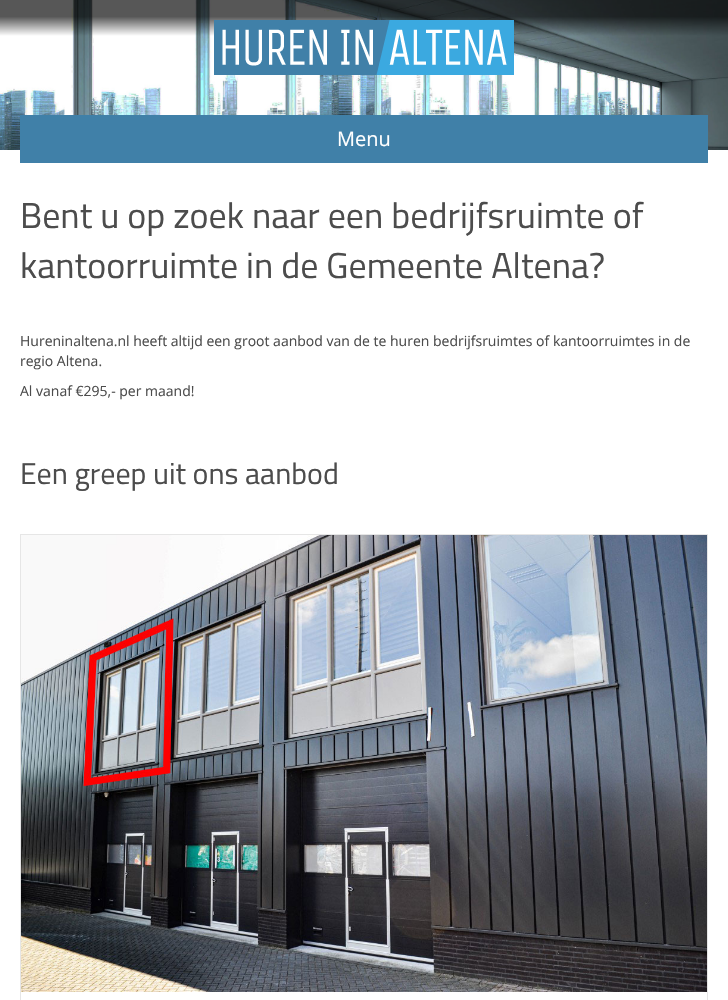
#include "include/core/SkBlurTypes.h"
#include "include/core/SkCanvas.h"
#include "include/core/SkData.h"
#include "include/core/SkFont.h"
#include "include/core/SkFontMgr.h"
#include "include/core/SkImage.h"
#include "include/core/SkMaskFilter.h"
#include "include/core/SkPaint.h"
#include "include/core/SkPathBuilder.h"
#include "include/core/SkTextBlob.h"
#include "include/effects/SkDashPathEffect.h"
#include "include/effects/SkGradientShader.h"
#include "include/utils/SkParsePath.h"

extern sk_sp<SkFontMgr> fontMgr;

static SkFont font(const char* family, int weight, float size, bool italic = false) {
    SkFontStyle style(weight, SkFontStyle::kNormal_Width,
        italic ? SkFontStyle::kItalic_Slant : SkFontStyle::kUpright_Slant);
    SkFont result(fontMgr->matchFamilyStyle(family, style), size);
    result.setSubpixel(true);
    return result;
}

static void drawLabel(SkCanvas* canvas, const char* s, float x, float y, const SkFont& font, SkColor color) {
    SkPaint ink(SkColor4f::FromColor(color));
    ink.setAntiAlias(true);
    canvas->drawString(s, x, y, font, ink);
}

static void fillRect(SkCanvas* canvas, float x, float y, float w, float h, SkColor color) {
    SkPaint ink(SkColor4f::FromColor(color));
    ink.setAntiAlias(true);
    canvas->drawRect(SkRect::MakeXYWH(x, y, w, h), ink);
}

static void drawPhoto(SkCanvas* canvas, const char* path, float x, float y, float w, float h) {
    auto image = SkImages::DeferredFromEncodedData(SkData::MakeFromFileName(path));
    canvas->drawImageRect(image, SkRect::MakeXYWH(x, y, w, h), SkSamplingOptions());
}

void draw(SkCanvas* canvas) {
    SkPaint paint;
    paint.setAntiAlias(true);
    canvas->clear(0xFFFFFFFF);
    drawPhoto(canvas, "assets/img2.png", 0, 0, 728, 150);
    drawPhoto(canvas, "assets/img1.png", 214, 20, 300, 55);
    fillRect(canvas, 20, 115, 688, 48, 0xFF4080A8);
    SkFont font1 = font("Open Sans", 400, 20);
    drawLabel(canvas, "Menu", 337, 146, font1, 0xFFFFFFFF);
    SkFont font2 = font("Titillium Web", 400, 36);
    drawLabel(canvas, "Bent u op zoek naar een bedrijfsruimte of", 20, 228, font2, 0xFF4C4C4C);
    drawLabel(canvas, "kantoorruimte in de Gemeente Altena?", 20, 278, font2, 0xFF4C4C4C);
    SkFont font3 = font("Open Sans", 400, 14);
    drawLabel(canvas, "Hureninaltena.nl heeft altijd een groot aanbod van de te huren bedrijfsruimtes of kantoorruimtes in de", 20, 346, font3, 0xFF4C4C4C);
    drawLabel(canvas, "regio Altena.", 20, 366, font3, 0xFF4C4C4C);
    drawLabel(canvas, "Al vanaf €295,- per maand!", 20, 396, font3, 0xFF4C4C4C);
    SkFont font4 = font("Titillium Web", 400, 30);
    drawLabel(canvas, "Een greep uit ons aanbod", 20, 484, font4, 0xFF4C4C4C);
    paint.setStroke(true);
    paint.setStrokeWidth(1);
    paint.setColor(0xFFE6E6E6);
    canvas->drawRect(SkRect::MakeXYWH(20.5f, 534.5f, 687, 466), paint);
    drawPhoto(canvas, "assets/img3.png", 21, 535, 686, 457);
}
